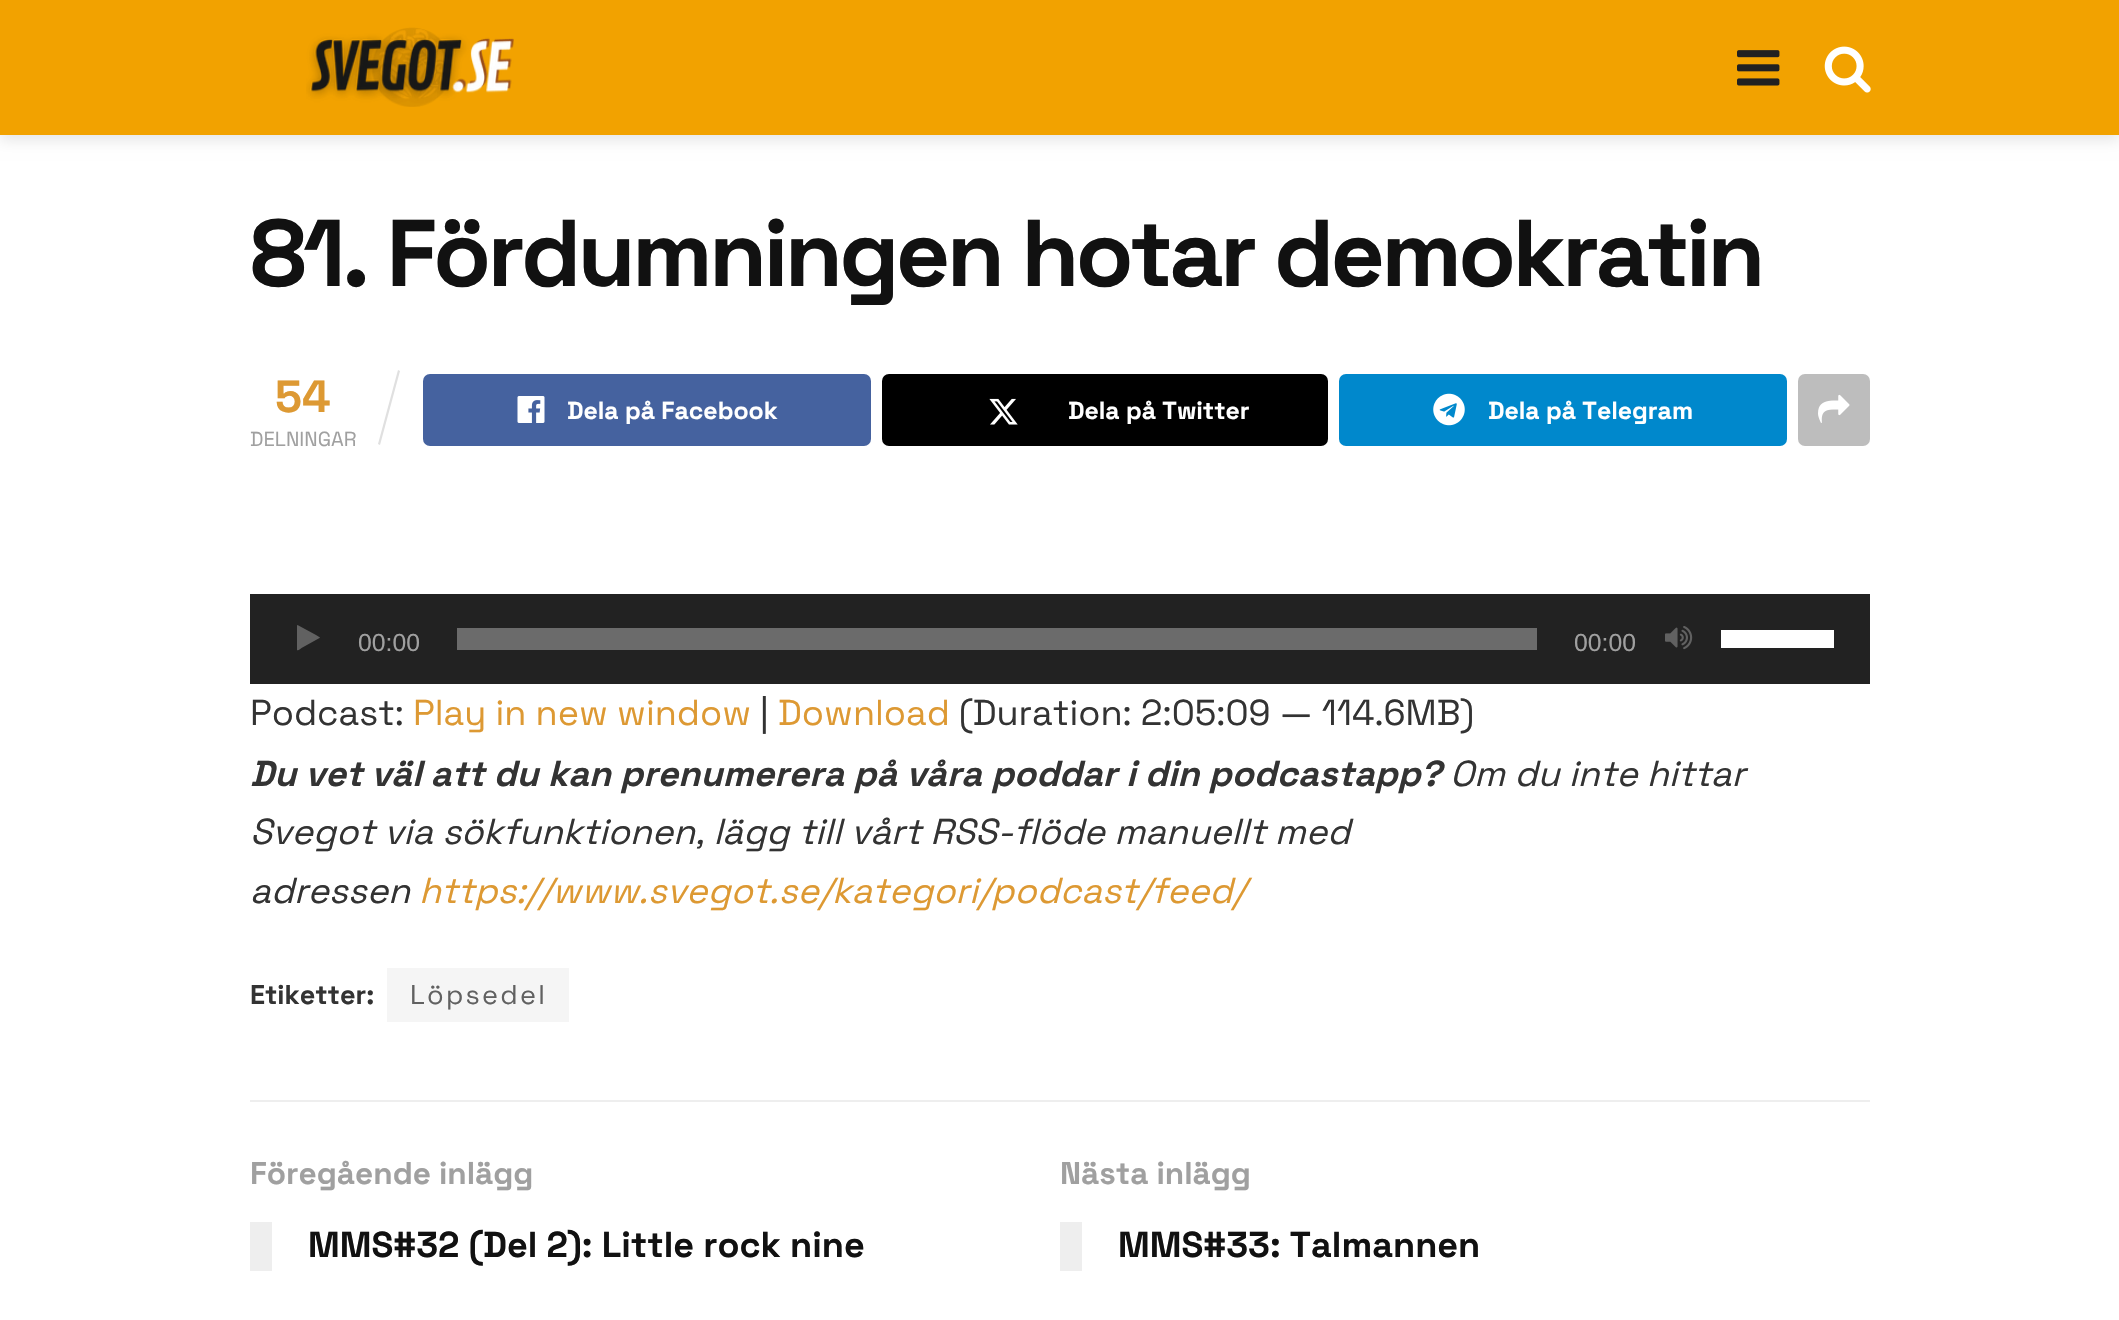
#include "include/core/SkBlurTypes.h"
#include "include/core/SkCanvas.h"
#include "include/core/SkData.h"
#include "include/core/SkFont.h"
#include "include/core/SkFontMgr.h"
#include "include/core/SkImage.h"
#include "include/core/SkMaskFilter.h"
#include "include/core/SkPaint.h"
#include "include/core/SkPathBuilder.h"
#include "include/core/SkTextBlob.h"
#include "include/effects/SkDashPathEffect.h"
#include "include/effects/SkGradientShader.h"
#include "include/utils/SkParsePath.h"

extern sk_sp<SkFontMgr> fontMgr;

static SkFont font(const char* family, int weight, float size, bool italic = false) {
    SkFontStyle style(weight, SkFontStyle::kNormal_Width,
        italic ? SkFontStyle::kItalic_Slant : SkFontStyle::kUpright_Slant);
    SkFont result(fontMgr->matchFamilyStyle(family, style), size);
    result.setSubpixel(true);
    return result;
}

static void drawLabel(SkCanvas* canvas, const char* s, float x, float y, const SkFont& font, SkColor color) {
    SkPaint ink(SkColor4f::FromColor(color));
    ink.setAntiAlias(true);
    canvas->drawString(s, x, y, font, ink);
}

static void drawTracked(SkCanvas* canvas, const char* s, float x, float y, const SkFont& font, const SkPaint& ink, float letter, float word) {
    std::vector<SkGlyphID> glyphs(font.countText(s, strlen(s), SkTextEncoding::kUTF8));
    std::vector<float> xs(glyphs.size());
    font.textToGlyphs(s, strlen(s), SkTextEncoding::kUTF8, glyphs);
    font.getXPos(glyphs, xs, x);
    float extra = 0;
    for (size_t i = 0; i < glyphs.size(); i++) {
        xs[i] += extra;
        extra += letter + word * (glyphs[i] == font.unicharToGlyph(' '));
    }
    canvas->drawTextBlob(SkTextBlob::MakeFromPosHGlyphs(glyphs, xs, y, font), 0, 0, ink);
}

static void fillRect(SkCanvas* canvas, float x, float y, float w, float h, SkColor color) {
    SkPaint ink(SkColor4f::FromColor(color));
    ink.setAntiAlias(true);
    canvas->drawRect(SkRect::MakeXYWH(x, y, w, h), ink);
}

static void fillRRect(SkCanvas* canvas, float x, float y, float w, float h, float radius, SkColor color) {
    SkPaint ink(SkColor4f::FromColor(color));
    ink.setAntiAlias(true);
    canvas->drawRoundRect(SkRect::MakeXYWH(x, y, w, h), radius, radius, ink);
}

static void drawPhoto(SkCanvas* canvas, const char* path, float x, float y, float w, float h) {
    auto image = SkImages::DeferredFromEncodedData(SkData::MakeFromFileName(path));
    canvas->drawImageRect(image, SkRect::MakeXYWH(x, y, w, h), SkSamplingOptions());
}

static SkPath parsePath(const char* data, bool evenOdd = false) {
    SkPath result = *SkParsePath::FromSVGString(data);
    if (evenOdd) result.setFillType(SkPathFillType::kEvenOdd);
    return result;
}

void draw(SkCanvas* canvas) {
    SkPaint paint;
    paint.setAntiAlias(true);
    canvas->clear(0xFFFFFFFF);
    paint.setColor(0x1A000000);
    paint.setMaskFilter(SkMaskFilter::MakeBlur(kNormal_SkBlurStyle, 7));
    canvas->drawRect(SkRect::MakeXYWH(0, 5, 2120, 135), paint);
    paint.setMaskFilter(nullptr);
    fillRect(canvas, 0, 0, 2119, 135, 0xFFF2A200);
    drawPhoto(canvas, "assets/img1.png", 306, 27, 208, 80);
    drawPhoto(canvas, "assets/img2.png", 1737, 50, 43, 36);
    drawPhoto(canvas, "assets/img3.png", 1824, 46, 47, 47);
    SkFont font1 = font("Space Grotesk", 700, 94.5f);
    paint.setColor(0xFF111111);
    drawTracked(canvas, "81. Fördumningen hotar demokratin", 250, 286, font1, paint, -3.75f, 0);
    SkFont font2 = font("Space Grotesk", 700, 45);
    drawLabel(canvas, "54", 275, 412, font2, 0xFFDD9933);
    paint.setColor(0xFFE0E0E0);
    canvas->drawPath(parsePath("M398 370L400 371L380 445L378 444Z"), paint);
    SkFont font3 = font("Space Grotesk", 400, 20.25f);
    drawLabel(canvas, "DELNINGAR", 250, 446, font3, 0xFFA0A0A0);
    fillRRect(canvas, 423, 374, 448, 72, 7, 0xFF45629F);
    drawPhoto(canvas, "assets/img4.png", 517, 396, 28, 27);
    SkFont font4 = font("Space Grotesk", 700, 24.75f);
    drawLabel(canvas, "Dela på Facebook", 567, 419, font4, 0xFFFFFFFF);
    fillRRect(canvas, 882, 374, 446, 72, 7, 0xFF000000);
    drawPhoto(canvas, "assets/img5.png", 989, 398, 29, 27);
    drawLabel(canvas, "Dela på Twitter", 1068, 419, font4, 0xFFFFFFFF);
    fillRRect(canvas, 1339, 374, 448, 72, 7, 0xFF0088CC);
    drawPhoto(canvas, "assets/img6.png", 1433, 393, 32, 33);
    drawLabel(canvas, "Dela på Telegram", 1488, 419, font4, 0xFFFFFFFF);
    fillRRect(canvas, 1798, 374, 72, 72, 7, 0xFFBDBDBD);
    drawPhoto(canvas, "assets/img7.png", 1818, 394, 32, 29);
    fillRect(canvas, 250, 594, 1620, 90, 0xFF222222);
    paint.setColor(0xFF616161);
    canvas->drawPath(parsePath("M319.5 638L301.5 648C301 648.5 298 651 297 650V625.5L297.5 625L316 635L320 637.5Z"), paint);
    SkFont font5 = font("Liberation Sans", 400, 24.75f);
    drawLabel(canvas, "00:00", 358, 651, font5, 0xFFA0A0A0);
    fillRect(canvas, 457, 628, 1080, 22, 0xFF6B6B6B);
    drawLabel(canvas, "00:00", 1574, 651, font5, 0xFFA0A0A0);
    drawPhoto(canvas, "assets/img8.png", 1665, 626, 28, 24);
    fillRect(canvas, 1721, 630, 113, 18, 0xFFFFFFFF);
    SkFont font6 = font("Space Grotesk", 400, 36);
    drawLabel(canvas, "Podcast:", 250, 725, font6, 0xFF333333);
    drawLabel(canvas, "Play in new window", 413, 725, font6, 0xFFDD9933);
    drawLabel(canvas, "|", 760, 725, font6, 0xFF333333);
    drawLabel(canvas, "Download", 778, 725, font6, 0xFFDD9933);
    drawLabel(canvas, "(Duration: 2:05:09 — 114.6MB)", 959, 725, font6, 0xFF333333);
    SkFont font7 = font("Space Grotesk", 700, 36, true);
    drawLabel(canvas, "Du vet väl att du kan prenumerera på våra poddar i din podcastapp?", 250, 786, font7, 0xFF333333);
    SkFont font8 = font("Space Grotesk", 400, 36, true);
    drawLabel(canvas, "Om du inte hittar", 1450, 786, font8, 0xFF333333);
    drawLabel(canvas, "Svegot via sökfunktionen, lägg till vårt RSS-flöde manuellt med", 250, 844, font8, 0xFF333333);
    drawLabel(canvas, "adressen", 250, 903, font8, 0xFF333333);
    drawLabel(canvas, "https://www.svegot.se/kategori/podcast/feed/", 419, 903, font8, 0xFFDD9933);
    SkFont font9 = font("Space Grotesk", 700, 27);
    drawLabel(canvas, "Etiketter:", 250, 1004, font9, 0xFF333333);
    fillRect(canvas, 387, 968, 182, 54, 0xFFF5F5F5);
    SkFont font10 = font("Space Grotesk", 400, 27);
    drawTracked(canvas, "Löpsedel", 410, 1004, font10, paint, 2.25f, 0);
    fillRect(canvas, 250, 1100, 1620, 2, 0xFFEEEEEE);
    SkFont font11 = font("Space Grotesk", 700, 31.5f);
    drawLabel(canvas, "Föregående inlägg", 250, 1184, font11, 0xFFA0A0A0);
    fillRect(canvas, 250, 1222, 22, 49, 0xFFEEEEEE);
    SkFont font12 = font("Space Grotesk", 700, 36);
    drawLabel(canvas, "MMS#32 (Del 2): Little rock nine", 308, 1257, font12, 0xFF111111);
    drawLabel(canvas, "Nästa inlägg", 1060, 1184, font11, 0xFFA0A0A0);
    fillRect(canvas, 1060, 1222, 22, 49, 0xFFEEEEEE);
    drawLabel(canvas, "MMS#33: Talmannen", 1118, 1257, font12, 0xFF111111);
}
